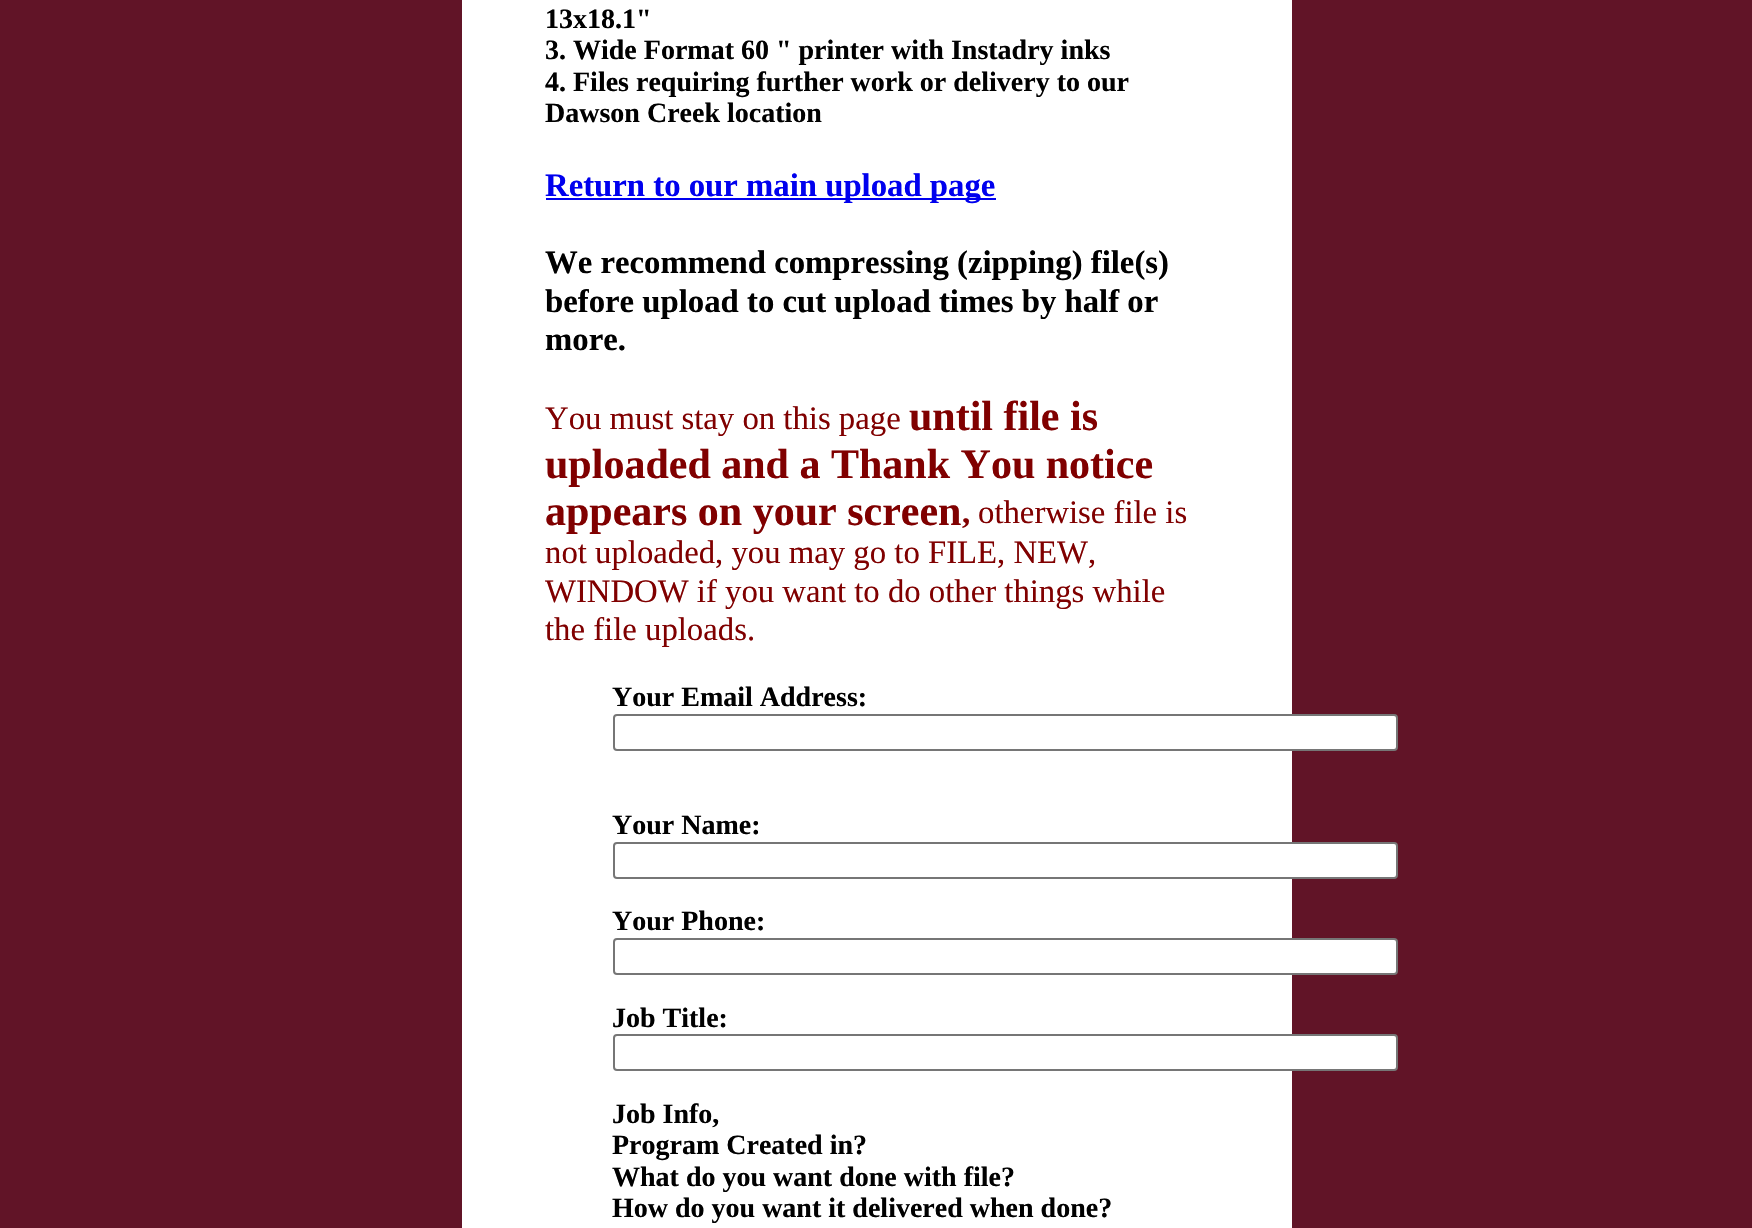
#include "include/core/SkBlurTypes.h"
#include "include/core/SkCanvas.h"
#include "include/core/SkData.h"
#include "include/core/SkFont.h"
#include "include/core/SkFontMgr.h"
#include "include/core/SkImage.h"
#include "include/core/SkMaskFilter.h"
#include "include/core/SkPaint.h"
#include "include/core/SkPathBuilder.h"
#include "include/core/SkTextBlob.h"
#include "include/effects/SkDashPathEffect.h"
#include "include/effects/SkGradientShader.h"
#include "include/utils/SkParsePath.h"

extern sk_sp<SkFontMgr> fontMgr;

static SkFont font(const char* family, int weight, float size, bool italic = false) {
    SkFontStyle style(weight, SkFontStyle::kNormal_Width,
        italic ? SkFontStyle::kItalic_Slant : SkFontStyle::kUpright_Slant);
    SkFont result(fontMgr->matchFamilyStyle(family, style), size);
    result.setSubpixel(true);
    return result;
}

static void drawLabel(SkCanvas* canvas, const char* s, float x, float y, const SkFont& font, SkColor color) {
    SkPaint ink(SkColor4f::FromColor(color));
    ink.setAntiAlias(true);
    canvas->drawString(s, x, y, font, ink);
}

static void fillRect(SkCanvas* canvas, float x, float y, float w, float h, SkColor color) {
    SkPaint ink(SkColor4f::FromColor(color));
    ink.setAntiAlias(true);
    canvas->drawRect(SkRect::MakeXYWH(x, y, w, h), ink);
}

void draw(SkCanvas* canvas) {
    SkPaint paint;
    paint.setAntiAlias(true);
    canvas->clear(0xFF611427);
    fillRect(canvas, 462, 0, 830, 1228, 0xFFFFFFFF);
    SkFont font1 = font("Liberation Serif", 700, 28);
    drawLabel(canvas, "13x18.1\"", 545, 28, font1, 0xFF000000);
    drawLabel(canvas, "3. Wide Format 60 \" printer with Instadry inks", 545, 59, font1, 0xFF000000);
    drawLabel(canvas, "4. Files requiring further work or delivery to our", 545, 91, font1, 0xFF000000);
    drawLabel(canvas, "Dawson Creek location", 545, 122, font1, 0xFF000000);
    fillRect(canvas, 546, 198, 450, 2, 0xFF0000EE);
    SkFont font2 = font("Liberation Serif", 700, 32.75f);
    drawLabel(canvas, "Return to our main upload page", 545, 196, font2, 0xFF0000EE);
    drawLabel(canvas, "We recommend compressing (zipping) file(s)", 545, 273, font2, 0xFF000000);
    drawLabel(canvas, "before upload to cut upload times by half or", 545, 312, font2, 0xFF000000);
    drawLabel(canvas, "more.", 545, 350, font2, 0xFF000000);
    SkFont font3 = font("Liberation Serif", 400, 32.75f);
    drawLabel(canvas, "You must stay on this page", 545, 429, font3, 0xFF800000);
    SkFont font4 = font("Liberation Serif", 700, 42);
    drawLabel(canvas, "until file is", 909, 430, font4, 0xFF800000);
    drawLabel(canvas, "uploaded and a Thank You notice", 545, 478, font4, 0xFF800000);
    drawLabel(canvas, "appears on your screen", 545, 525, font4, 0xFF800000);
    drawLabel(canvas, ",", 962, 523, font2, 0xFF800000);
    drawLabel(canvas, "otherwise file is", 978, 523, font3, 0xFF800000);
    drawLabel(canvas, "not uploaded, you may go to FILE, NEW,", 545, 563, font3, 0xFF800000);
    drawLabel(canvas, "WINDOW if you want to do other things while", 545, 602, font3, 0xFF800000);
    drawLabel(canvas, "the file uploads.", 545, 640, font3, 0xFF800000);
    drawLabel(canvas, "Your Email Address:", 612, 706, font1, 0xFF000000);
    paint.setColor(0xFFFFFFFF);
    canvas->drawRoundRect(SkRect::MakeXYWH(614, 715, 783, 35), 3, 3, paint);
    paint.setStroke(true);
    paint.setStrokeWidth(2);
    paint.setColor(0xFF767676);
    canvas->drawRoundRect(SkRect::MakeXYWH(614, 715, 783, 35), 3, 3, paint);
    drawLabel(canvas, "Your Name:", 612, 834, font1, 0xFF000000);
    paint.setStroke(false);
    paint.setColor(0xFFFFFFFF);
    canvas->drawRoundRect(SkRect::MakeXYWH(614, 843, 783, 35), 3, 3, paint);
    paint.setStroke(true);
    paint.setColor(0xFF767676);
    canvas->drawRoundRect(SkRect::MakeXYWH(614, 843, 783, 35), 3, 3, paint);
    drawLabel(canvas, "Your Phone:", 612, 930, font1, 0xFF000000);
    paint.setStroke(false);
    paint.setColor(0xFFFFFFFF);
    canvas->drawRoundRect(SkRect::MakeXYWH(614, 939, 783, 35), 3, 3, paint);
    paint.setStroke(true);
    paint.setColor(0xFF767676);
    canvas->drawRoundRect(SkRect::MakeXYWH(614, 939, 783, 35), 3, 3, paint);
    drawLabel(canvas, "Job Title:", 612, 1027, font1, 0xFF000000);
    paint.setStroke(false);
    paint.setColor(0xFFFFFFFF);
    canvas->drawRoundRect(SkRect::MakeXYWH(614, 1035, 783, 35), 3, 3, paint);
    paint.setStroke(true);
    paint.setColor(0xFF767676);
    canvas->drawRoundRect(SkRect::MakeXYWH(614, 1035, 783, 35), 3, 3, paint);
    drawLabel(canvas, "Job Info,", 612, 1123, font1, 0xFF000000);
    drawLabel(canvas, "Program Created in?", 612, 1154, font1, 0xFF000000);
    drawLabel(canvas, "What do you want done with file?", 612, 1186, font1, 0xFF000000);
    drawLabel(canvas, "How do you want it delivered when done?", 612, 1217, font1, 0xFF000000);
}
